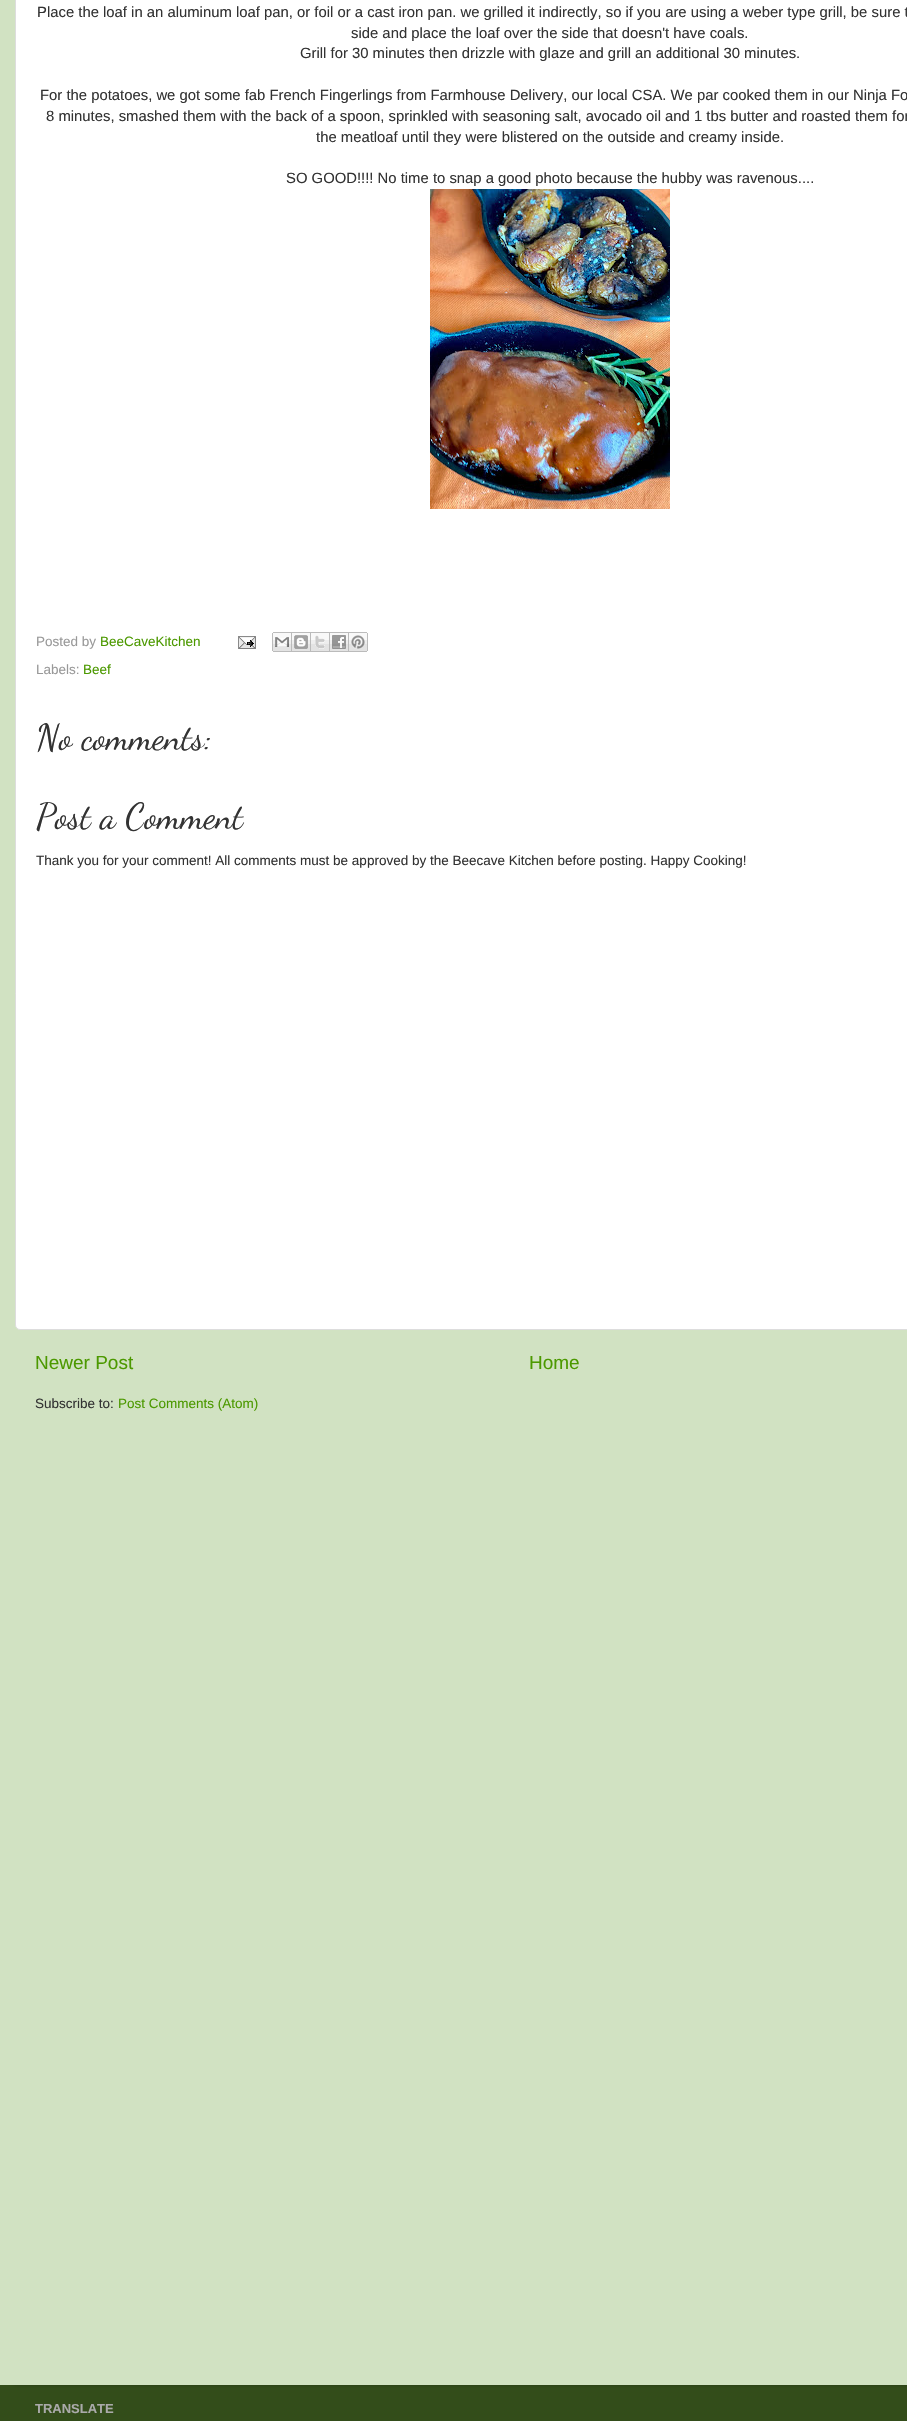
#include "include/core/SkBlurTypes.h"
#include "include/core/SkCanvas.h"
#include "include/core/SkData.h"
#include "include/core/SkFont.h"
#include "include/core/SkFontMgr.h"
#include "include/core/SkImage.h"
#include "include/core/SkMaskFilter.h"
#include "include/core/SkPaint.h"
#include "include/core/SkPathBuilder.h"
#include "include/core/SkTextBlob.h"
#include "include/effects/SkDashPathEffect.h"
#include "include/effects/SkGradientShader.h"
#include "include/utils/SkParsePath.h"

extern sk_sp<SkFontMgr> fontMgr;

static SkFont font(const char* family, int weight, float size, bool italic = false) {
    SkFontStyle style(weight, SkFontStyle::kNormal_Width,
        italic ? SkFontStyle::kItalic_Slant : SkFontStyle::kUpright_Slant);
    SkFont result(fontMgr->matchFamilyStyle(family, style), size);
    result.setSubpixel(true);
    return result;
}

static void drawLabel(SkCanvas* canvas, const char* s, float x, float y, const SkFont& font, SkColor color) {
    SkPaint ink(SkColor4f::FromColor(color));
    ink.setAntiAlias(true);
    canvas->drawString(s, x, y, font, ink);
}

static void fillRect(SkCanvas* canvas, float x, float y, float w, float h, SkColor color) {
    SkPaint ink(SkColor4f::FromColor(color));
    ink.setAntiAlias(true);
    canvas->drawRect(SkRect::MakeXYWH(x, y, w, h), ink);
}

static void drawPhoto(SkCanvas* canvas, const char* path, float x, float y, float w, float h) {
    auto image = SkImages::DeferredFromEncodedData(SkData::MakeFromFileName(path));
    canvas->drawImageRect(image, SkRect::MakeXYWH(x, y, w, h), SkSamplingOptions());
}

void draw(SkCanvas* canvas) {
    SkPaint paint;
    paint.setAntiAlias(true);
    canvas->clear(0xFF334D1A);
    paint.setColor(0x26000000);
    paint.setMaskFilter(SkMaskFilter::MakeBlur(kNormal_SkBlurStyle, 1.5f));
    canvas->drawRoundRect(SkRect::MakeXYWH(0, -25, 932, 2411), 20, 20, paint);
    paint.setMaskFilter(nullptr);
    fillRect(canvas, 0, 0, 907, 2385, 0xFFD1E2C2);
    paint.setColor(0xFFFFFFFF);
    canvas->drawRoundRect(SkRect::MakeXYWH(15.5f, -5.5f, 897, 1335), 4.5f, 4.5f, paint);
    paint.setStroke(true);
    paint.setStrokeWidth(1);
    paint.setColor(0xFFDDDDDD);
    canvas->drawRoundRect(SkRect::MakeXYWH(15.5f, -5.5f, 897, 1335), 4.5f, 4.5f, paint);
    SkFont font1 = font("Liberation Sans", 400, 14.85f);
    drawLabel(canvas, "Place the loaf in an aluminum loaf pan, or foil or a cast iron pan. we grilled it indirectly, so if you are using a weber type grill, be sure t", 37, 17, font1, 0xFF333333);
    drawLabel(canvas, "side and place the loaf over the side that doesn't have coals.", 351, 38, font1, 0xFF333333);
    drawLabel(canvas, "Grill for 30 minutes then drizzle with glaze and grill an additional 30 minutes.", 300, 58, font1, 0xFF333333);
    drawLabel(canvas, "For the potatoes, we got some fab French Fingerlings from Farmhouse Delivery, our local CSA. We par cooked them in our Ninja Fo", 40, 100, font1, 0xFF333333);
    drawLabel(canvas, "8 minutes, smashed them with the back of a spoon, sprinkled with seasoning salt, avocado oil and 1 tbs butter and roasted them for", 46, 121, font1, 0xFF333333);
    drawLabel(canvas, "the meatloaf until they were blistered on the outside and creamy inside.", 316, 142, font1, 0xFF333333);
    drawLabel(canvas, "SO GOOD!!!! No time to snap a good photo because the hubby was ravenous....", 286, 183, font1, 0xFF333333);
    drawPhoto(canvas, "assets/img1.png", 430, 189, 240, 320);
    SkFont font2 = font("Liberation Sans", 400, 13.5f);
    drawLabel(canvas, "Posted by", 36, 646, font2, 0xFF999999);
    drawLabel(canvas, "BeeCaveKitchen", 100, 646, font2, 0xFF4C9900);
    drawPhoto(canvas, "assets/img2.png", 238, 636, 18, 13);
    drawPhoto(canvas, "assets/img3.png", 272, 632, 20, 20);
    drawPhoto(canvas, "assets/img4.png", 292, 632, 19, 20);
    drawPhoto(canvas, "assets/img5.png", 311, 632, 19, 20);
    drawPhoto(canvas, "assets/img6.png", 330, 632, 19, 20);
    drawPhoto(canvas, "assets/img7.png", 349, 632, 19, 20);
    drawLabel(canvas, "Labels:", 36, 674, font2, 0xFF999999);
    drawLabel(canvas, "Beef", 83, 674, font2, 0xFF4C9900);
    SkFont font3 = font("Dancing Script", 400, 36);
    drawLabel(canvas, "No comments:", 36, 749, font3, 0xFF333333);
    drawLabel(canvas, "Post a Comment", 36, 828, font3, 0xFF333333);
    drawLabel(canvas, "Thank you for your comment! All comments must be approved by the Beecave Kitchen before posting. Happy Cooking!", 36, 865, font2, 0xFF333333);
    SkFont font4 = font("Liberation Sans", 400, 19);
    drawLabel(canvas, "Newer Post", 35, 1369, font4, 0xFF4C9900);
    drawLabel(canvas, "Home", 529, 1369, font4, 0xFF4C9900);
    drawLabel(canvas, "Subscribe to:", 35, 1408, font2, 0xFF333333);
    drawLabel(canvas, "Post Comments (Atom)", 118, 1408, font2, 0xFF4C9900);
    SkFont font5 = font("Liberation Sans", 700, 13);
    drawLabel(canvas, "TRANSLATE", 35, 2413, font5, 0xFFAAAAAA);
}
